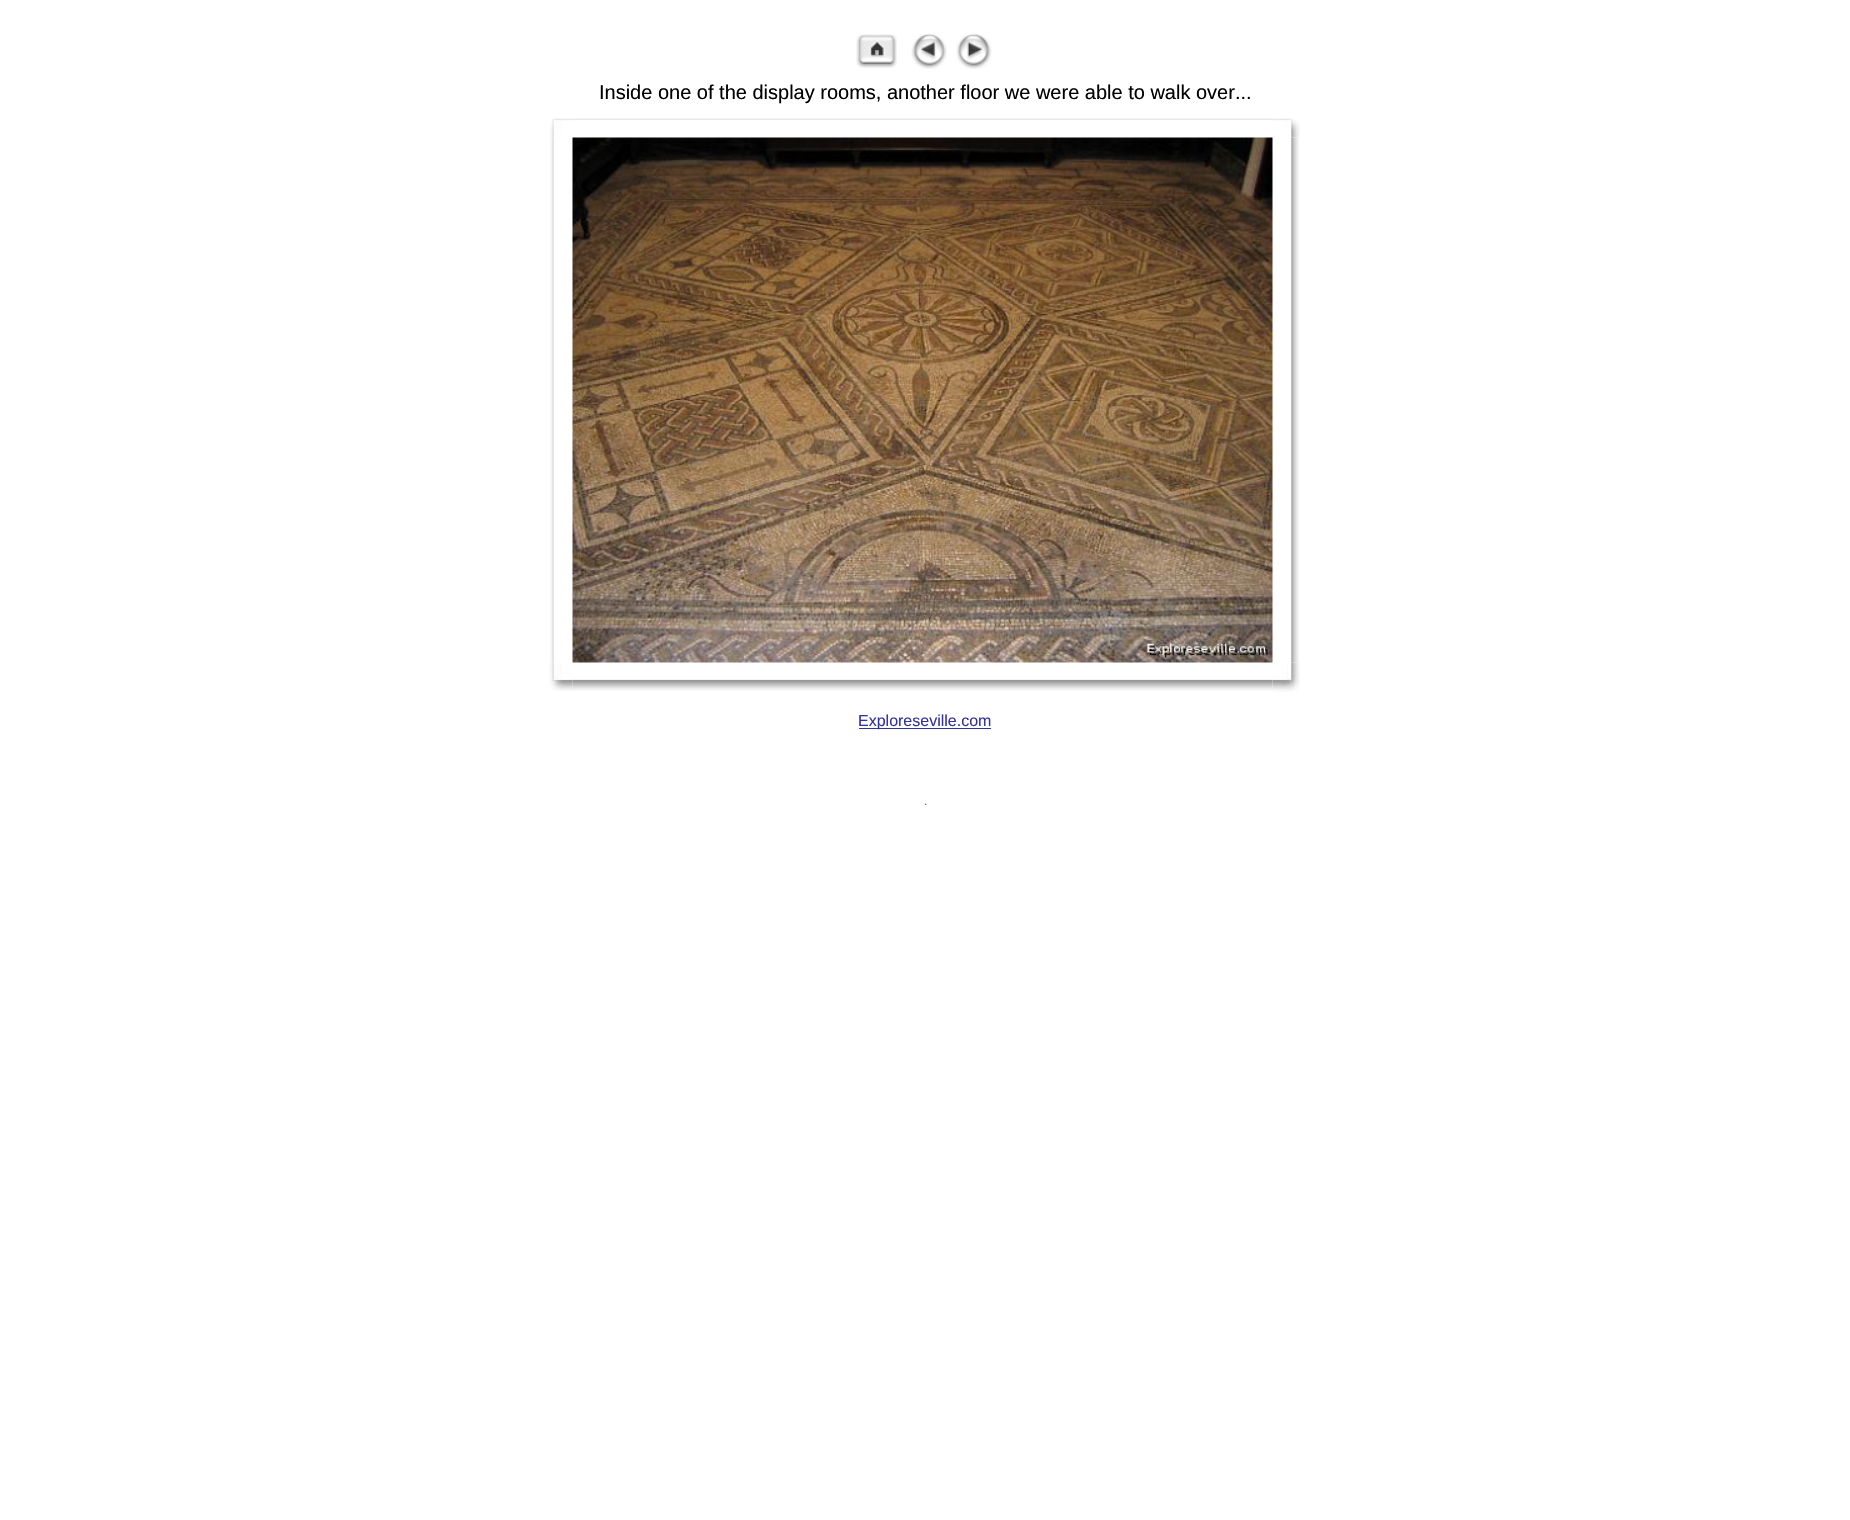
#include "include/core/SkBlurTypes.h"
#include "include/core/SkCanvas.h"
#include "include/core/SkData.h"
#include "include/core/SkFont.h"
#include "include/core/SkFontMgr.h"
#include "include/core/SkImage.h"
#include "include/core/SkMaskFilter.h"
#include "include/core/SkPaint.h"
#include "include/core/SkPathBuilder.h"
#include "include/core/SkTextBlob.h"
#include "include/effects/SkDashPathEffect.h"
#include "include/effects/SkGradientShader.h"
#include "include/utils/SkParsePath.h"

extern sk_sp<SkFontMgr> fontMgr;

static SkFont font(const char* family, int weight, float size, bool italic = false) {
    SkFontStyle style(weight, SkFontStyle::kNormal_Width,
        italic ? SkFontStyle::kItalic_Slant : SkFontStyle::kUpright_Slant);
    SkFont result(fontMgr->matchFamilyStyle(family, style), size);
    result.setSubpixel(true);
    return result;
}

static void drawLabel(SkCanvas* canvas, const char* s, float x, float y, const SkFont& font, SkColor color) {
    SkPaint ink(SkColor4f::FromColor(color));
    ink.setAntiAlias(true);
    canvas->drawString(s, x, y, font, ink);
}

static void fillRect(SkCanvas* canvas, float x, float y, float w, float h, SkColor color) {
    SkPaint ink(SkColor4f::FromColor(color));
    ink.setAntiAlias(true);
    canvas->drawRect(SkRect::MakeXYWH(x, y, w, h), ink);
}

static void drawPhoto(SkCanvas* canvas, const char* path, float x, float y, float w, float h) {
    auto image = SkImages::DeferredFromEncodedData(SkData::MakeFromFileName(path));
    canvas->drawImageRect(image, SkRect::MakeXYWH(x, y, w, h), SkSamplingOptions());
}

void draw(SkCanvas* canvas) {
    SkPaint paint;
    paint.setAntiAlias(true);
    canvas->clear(0xFFFFFFFF);
    drawPhoto(canvas, "assets/img1.png", 856, 34, 41, 34);
    drawPhoto(canvas, "assets/img2.png", 911, 33, 36, 36);
    drawPhoto(canvas, "assets/img3.png", 956, 33, 36, 36);
    SkFont font1 = font("Liberation Sans", 400, 20);
    drawLabel(canvas, "Inside one of the display rooms, another floor we were able to walk over...", 599, 99, font1, 0xFF000000);
    drawPhoto(canvas, "assets/img5.png", 572, 118, 701, 2);
    drawPhoto(canvas, "assets/img7.png", 550, 137, 4, 526);
    drawPhoto(canvas, "assets/img4.png", 550, 118, 23, 20);
    drawPhoto(canvas, "assets/img9.png", 1291, 137, 8, 526);
    drawPhoto(canvas, "assets/img6.png", 1272, 118, 28, 20);
    drawPhoto(canvas, "assets/img8.png", 572, 137, 701, 526);
    drawPhoto(canvas, "assets/img11.png", 572, 679, 701, 12);
    drawPhoto(canvas, "assets/img10.png", 549, 662, 24, 29);
    drawPhoto(canvas, "assets/img12.png", 1272, 662, 28, 30);
    fillRect(canvas, 859, 728, 132, 1, 0xFF333399);
    SkFont font2 = font("Liberation Sans", 400, 16);
    drawLabel(canvas, "Exploreseville.com", 858, 726, font2, 0xFF333399);
    drawPhoto(canvas, "assets/img13.png", 925, 803, 2, 2);
}
